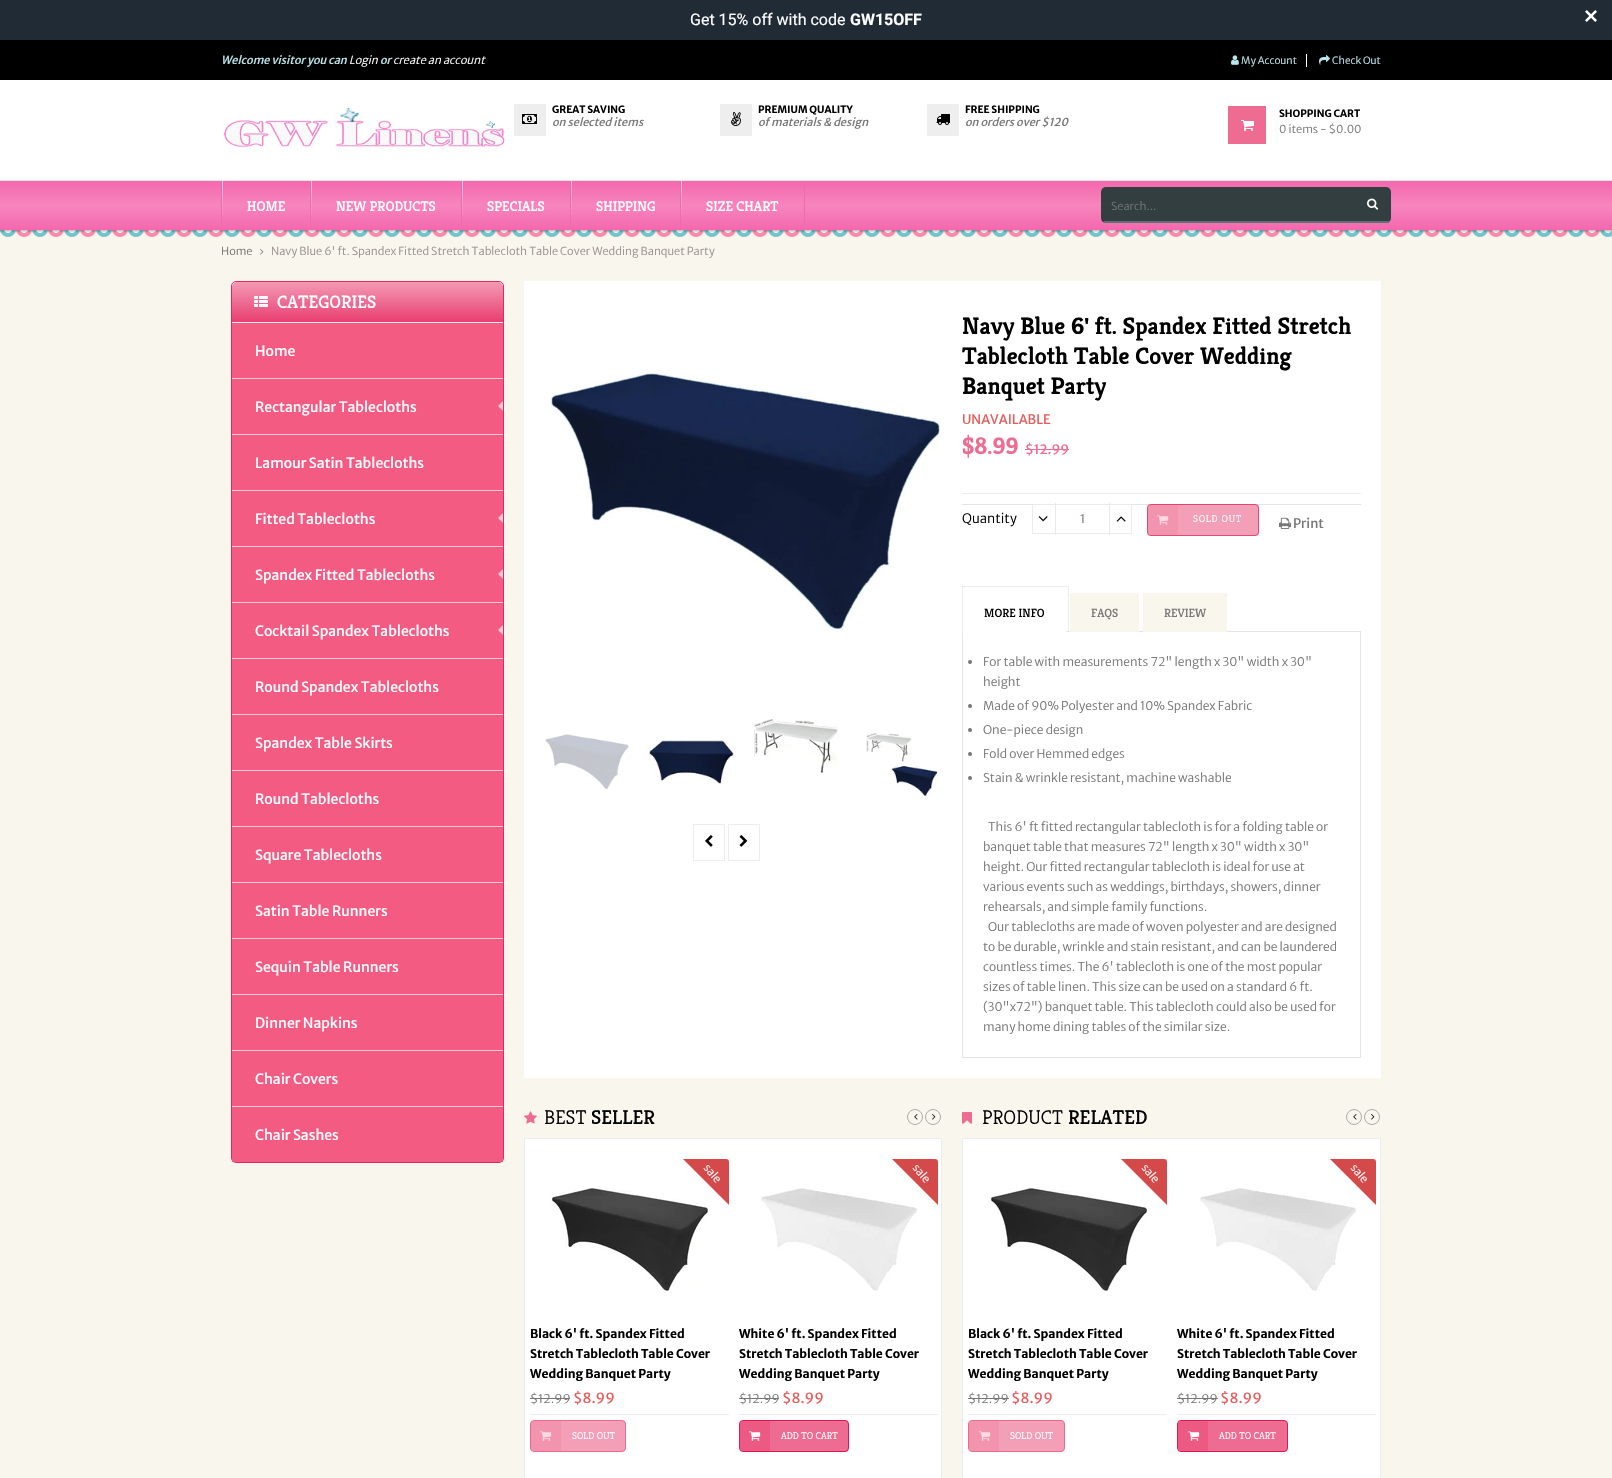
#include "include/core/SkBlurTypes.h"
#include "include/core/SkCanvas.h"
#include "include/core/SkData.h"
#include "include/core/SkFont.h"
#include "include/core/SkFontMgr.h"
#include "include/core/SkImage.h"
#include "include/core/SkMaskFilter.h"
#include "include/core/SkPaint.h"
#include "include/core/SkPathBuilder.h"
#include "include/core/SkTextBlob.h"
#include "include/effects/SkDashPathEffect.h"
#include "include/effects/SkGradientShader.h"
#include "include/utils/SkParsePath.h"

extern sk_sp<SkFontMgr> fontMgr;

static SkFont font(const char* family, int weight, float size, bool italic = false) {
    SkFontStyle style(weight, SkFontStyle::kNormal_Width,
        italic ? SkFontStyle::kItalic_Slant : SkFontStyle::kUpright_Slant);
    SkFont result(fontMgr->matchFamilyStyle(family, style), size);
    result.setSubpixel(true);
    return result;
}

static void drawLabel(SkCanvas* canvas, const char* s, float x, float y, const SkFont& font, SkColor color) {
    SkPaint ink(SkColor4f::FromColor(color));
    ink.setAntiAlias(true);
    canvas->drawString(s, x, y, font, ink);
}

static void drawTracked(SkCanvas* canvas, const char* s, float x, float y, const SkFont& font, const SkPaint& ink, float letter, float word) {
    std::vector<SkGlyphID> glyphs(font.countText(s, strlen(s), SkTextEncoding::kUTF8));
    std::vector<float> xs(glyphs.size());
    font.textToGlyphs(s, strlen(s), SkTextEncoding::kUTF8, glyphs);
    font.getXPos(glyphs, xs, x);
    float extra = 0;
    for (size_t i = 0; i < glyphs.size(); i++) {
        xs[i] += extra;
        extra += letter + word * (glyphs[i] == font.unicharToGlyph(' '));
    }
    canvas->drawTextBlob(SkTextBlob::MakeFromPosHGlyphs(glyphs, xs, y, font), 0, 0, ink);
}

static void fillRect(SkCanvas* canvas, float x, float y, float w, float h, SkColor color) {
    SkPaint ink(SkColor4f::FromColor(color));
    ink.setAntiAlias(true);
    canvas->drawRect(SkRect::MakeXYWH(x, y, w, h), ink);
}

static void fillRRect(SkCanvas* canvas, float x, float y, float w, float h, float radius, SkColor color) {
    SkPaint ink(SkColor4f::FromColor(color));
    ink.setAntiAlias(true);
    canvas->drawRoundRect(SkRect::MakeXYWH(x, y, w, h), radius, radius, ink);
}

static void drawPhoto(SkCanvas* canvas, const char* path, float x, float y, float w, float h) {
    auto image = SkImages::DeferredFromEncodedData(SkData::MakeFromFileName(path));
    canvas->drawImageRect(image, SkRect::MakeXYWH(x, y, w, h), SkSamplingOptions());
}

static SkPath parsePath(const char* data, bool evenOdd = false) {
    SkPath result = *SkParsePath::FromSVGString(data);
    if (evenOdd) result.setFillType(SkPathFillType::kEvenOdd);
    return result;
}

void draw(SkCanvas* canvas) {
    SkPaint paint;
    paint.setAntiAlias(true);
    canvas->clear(0xFFF8F6ED);
    fillRect(canvas, 0, 0, 1612, 40, 0xFF212B35);
    SkFont font1 = font("Roboto", 400, 16);
    drawLabel(canvas, "Get 15% off with code", 690, 25, font1, 0xFFFFFFFF);
    SkFont font2 = font("Roboto", 700, 16);
    drawLabel(canvas, "GW15OFF", 850, 25, font2, 0xFFFFFFFF);
    drawPhoto(canvas, "assets/img1.png", 1585, 10, 12, 12);
    fillRect(canvas, 0, 40, 1612, 40, 0xFF000000);
    SkFont font3 = font("Merriweather Sans", 400, 11, true);
    drawLabel(canvas, "Welcome visitor you can", 221, 64, font3, 0xFFBBE6EB);
    SkFont font4 = font("Merriweather Sans", 300, 11, true);
    drawLabel(canvas, "Login", 349, 64, font4, 0xFFFFFFFF);
    drawLabel(canvas, "or", 380, 64, font3, 0xFFBBE6EB);
    drawLabel(canvas, "create an account", 393, 64, font4, 0xFFFFFFFF);
    fillRect(canvas, 1306, 54, 1, 13, 0xFFFFFFFF);
    drawPhoto(canvas, "assets/img2.png", 1231, 55, 8, 10);
    SkFont font5 = font("Merriweather Sans", 300, 10);
    drawLabel(canvas, "My Account", 1241, 64, font5, 0xFFBBE6EB);
    drawPhoto(canvas, "assets/img3.png", 1319, 55, 11, 10);
    drawLabel(canvas, "Check Out", 1332, 64, font5, 0xFFBBE6EB);
    {
        const SkColor colors[] = {0xFFF468AE, 0xFFF685BD, 0xFFF468AE};
        const float stops[] = {0, 0.5f, 1};
        const SkPoint ends[] = {{806, 181}, {806, 230}};
        paint.setShader(SkGradientShader::MakeLinear(ends, colors, stops, 3, SkTileMode::kClamp));
        paint.setAlpha(255);
    }
    canvas->drawRect(SkRect::MakeXYWH(0, 181, 1612, 49), paint);
    fillRect(canvas, 0, 180, 1612, 1, 0xFFE5E5E5);
    fillRect(canvas, 221, 181, 1, 49, 0xFFF468AE);
    {
        const SkColor colors[] = {0xFFFBC7E1, 0xFFF685BD};
        const float stops[] = {0, 1};
        const SkPoint ends[] = {{223, 181}, {223, 215}};
        paint.setShader(SkGradientShader::MakeLinear(ends, colors, stops, 2, SkTileMode::kClamp));
        paint.setAlpha(255);
    }
    canvas->drawRect(SkRect::MakeXYWH(222, 181, 1, 34), paint);
    SkFont font6 = font("Kreon", 400, 14);
    drawLabel(canvas, "HOME", 247, 211, font6, 0xFFFFFFFF);
    fillRect(canvas, 310, 181, 1, 49, 0xFFF468AE);
    {
        const SkColor colors[] = {0xFFFBC7E1, 0xFFF685BD};
        const float stops[] = {0, 1};
        const SkPoint ends[] = {{312, 181}, {312, 215}};
        paint.setShader(SkGradientShader::MakeLinear(ends, colors, stops, 2, SkTileMode::kClamp));
        paint.setAlpha(255);
    }
    canvas->drawRect(SkRect::MakeXYWH(311, 181, 1, 34), paint);
    drawLabel(canvas, "NEW PRODUCTS", 336, 211, font6, 0xFFFFFFFF);
    fillRect(canvas, 461, 181, 1, 49, 0xFFF468AE);
    {
        const SkColor colors[] = {0xFFFBC7E1, 0xFFF685BD};
        const float stops[] = {0, 1};
        const SkPoint ends[] = {{463, 181}, {463, 215}};
        paint.setShader(SkGradientShader::MakeLinear(ends, colors, stops, 2, SkTileMode::kClamp));
        paint.setAlpha(255);
    }
    canvas->drawRect(SkRect::MakeXYWH(462, 181, 1, 34), paint);
    drawLabel(canvas, "SPECIALS", 487, 211, font6, 0xFFFFFFFF);
    fillRect(canvas, 570, 181, 1, 49, 0xFFF468AE);
    {
        const SkColor colors[] = {0xFFFBC7E1, 0xFFF685BD};
        const float stops[] = {0, 1};
        const SkPoint ends[] = {{572, 181}, {572, 215}};
        paint.setShader(SkGradientShader::MakeLinear(ends, colors, stops, 2, SkTileMode::kClamp));
        paint.setAlpha(255);
    }
    canvas->drawRect(SkRect::MakeXYWH(571, 181, 1, 34), paint);
    drawLabel(canvas, "SHIPPING", 596, 211, font6, 0xFFFFFFFF);
    fillRect(canvas, 804, 181, 1, 49, 0xFFF468AE);
    fillRect(canvas, 680, 181, 1, 49, 0xFFF468AE);
    {
        const SkColor colors[] = {0xFFFBC7E1, 0xFFF685BD};
        const float stops[] = {0, 1};
        const SkPoint ends[] = {{682, 181}, {682, 215}};
        paint.setShader(SkGradientShader::MakeLinear(ends, colors, stops, 2, SkTileMode::kClamp));
        paint.setAlpha(255);
    }
    canvas->drawRect(SkRect::MakeXYWH(681, 181, 1, 34), paint);
    drawLabel(canvas, "SIZE CHART", 706, 211, font6, 0xFFFFFFFF);
    drawPhoto(canvas, "assets/img4.png", 0, 230, 1612, 7);
    fillRect(canvas, 0, 80, 1612, 100, 0xFFFFFFFF);
    drawPhoto(canvas, "assets/img5.png", 224, 108, 281, 39);
    fillRect(canvas, 514, 104, 32, 32, 0xFFEEEEEE);
    drawPhoto(canvas, "assets/img6.png", 522, 114, 15, 10);
    SkFont font7 = font("Merriweather Sans", 700, 10);
    drawLabel(canvas, "GREAT SAVING", 552, 113, font7, 0xFF000000);
    drawLabel(canvas, "on selected items", 552, 126, font3, 0xFF777777);
    fillRect(canvas, 720, 104, 32, 32, 0xFFEEEEEE);
    drawPhoto(canvas, "assets/img7.png", 731, 112, 10, 14);
    drawLabel(canvas, "PREMIUM QUALITY", 758, 113, font7, 0xFF000000);
    drawLabel(canvas, "of materials & design", 758, 126, font3, 0xFF777777);
    fillRect(canvas, 927, 104, 32, 32, 0xFFEEEEEE);
    drawPhoto(canvas, "assets/img8.png", 936, 114, 14, 11);
    drawLabel(canvas, "FREE SHIPPING", 965, 113, font7, 0xFF000000);
    drawLabel(canvas, "on orders over $120", 965, 126, font3, 0xFF777777);
    fillRect(canvas, 1228, 106, 38, 38, 0xFFEE6C92);
    drawPhoto(canvas, "assets/img9.png", 1241, 120, 13, 11);
    drawLabel(canvas, "SHOPPING CART", 1279, 117, font7, 0xFF000000);
    SkFont font8 = font("Merriweather Sans", 300, 11);
    drawLabel(canvas, "0 items - $0.00", 1279, 133, font8, 0xFF777777);
    fillRRect(canvas, 1101, 187, 290, 36, 5, 0xFF333E40);
    fillRect(canvas, 1104, 221, 285, 2, 0xFF5D7173);
    drawLabel(canvas, "Search...", 1111, 210, font8, 0xFF707575);
    drawPhoto(canvas, "assets/img10.png", 1367, 198, 12, 12);
    drawLabel(canvas, "Home", 221, 255, font8, 0xFF777777);
    drawPhoto(canvas, "assets/img11.png", 260, 249, 4, 6);
    drawLabel(canvas, "Navy Blue 6' ft. Spandex Fitted Stretch Tablecloth Table Cover Wedding Banquet Party", 271, 255, font8, 0xFF9B9191);
    paint.setStroke(true);
    paint.setStrokeWidth(1);
    paint.setShader(nullptr);
    paint.setColor(0xFFE6275F);
    canvas->drawRoundRect(SkRect::MakeXYWH(231.5f, 281.5f, 272, 881), 4.5f, 4.5f, paint);
    paint.setStroke(false);
    {
        const SkColor colors[] = {0xFFF39AB4, 0xFFE93E70};
        const float stops[] = {0, 1};
        const SkPoint ends[] = {{368, 282}, {368, 322}};
        paint.setShader(SkGradientShader::MakeLinear(ends, colors, stops, 2, SkTileMode::kClamp));
        paint.setAlpha(255);
    }
    canvas->drawPath(parsePath("M237 282H498C501 282 503 284 503 287V322H232V287C232 284 234 282 237 282Z"), paint);
    drawPhoto(canvas, "assets/img12.png", 254, 296, 14, 11);
    SkFont font9 = font("Kreon", 400, 18);
    drawLabel(canvas, "CATEGORIES", 277, 308, font9, 0xFFFFFFFF);
    fillRect(canvas, 232, 323, 271, 839, 0xFFF45B83);
    fillRect(canvas, 232, 322, 271, 1, 0xFFEDEDED);
    SkFont font10 = font("Merriweather Sans", 400, 14);
    drawLabel(canvas, "Home", 255, 356, font10, 0xFFFFFFFF);
    fillRect(canvas, 232, 378, 271, 1, 0xFFF7C7D5);
    drawLabel(canvas, "Rectangular Tablecloths", 255, 412, font10, 0xFFFFFFFF);
    paint.setShader(nullptr);
    paint.setColor(0xFFF7C7D5);
    canvas->drawPath(parsePath("M503 401V411L498 406Z"), paint);
    fillRect(canvas, 232, 434, 271, 1, 0xFFF7C7D5);
    drawLabel(canvas, "Lamour Satin Tablecloths", 255, 468, font10, 0xFFFFFFFF);
    fillRect(canvas, 232, 490, 271, 1, 0xFFF7C7D5);
    drawLabel(canvas, "Fitted Tablecloths", 255, 524, font10, 0xFFFFFFFF);
    canvas->drawPath(parsePath("M503 513V523L498 518Z"), paint);
    fillRect(canvas, 232, 546, 271, 1, 0xFFF7C7D5);
    drawLabel(canvas, "Spandex Fitted Tablecloths", 255, 580, font10, 0xFFFFFFFF);
    canvas->drawPath(parsePath("M503 569V579L498 574Z"), paint);
    fillRect(canvas, 232, 602, 271, 1, 0xFFF7C7D5);
    drawLabel(canvas, "Cocktail Spandex Tablecloths", 255, 636, font10, 0xFFFFFFFF);
    canvas->drawPath(parsePath("M503 625V635L498 630Z"), paint);
    fillRect(canvas, 232, 658, 271, 1, 0xFFF7C7D5);
    drawLabel(canvas, "Round Spandex Tablecloths", 255, 692, font10, 0xFFFFFFFF);
    fillRect(canvas, 232, 714, 271, 1, 0xFFF7C7D5);
    drawLabel(canvas, "Spandex Table Skirts", 255, 748, font10, 0xFFFFFFFF);
    fillRect(canvas, 232, 770, 271, 1, 0xFFF7C7D5);
    drawLabel(canvas, "Round Tablecloths", 255, 804, font10, 0xFFFFFFFF);
    fillRect(canvas, 232, 826, 271, 1, 0xFFF7C7D5);
    drawLabel(canvas, "Square Tablecloths", 255, 860, font10, 0xFFFFFFFF);
    fillRect(canvas, 232, 882, 271, 1, 0xFFF7C7D5);
    drawLabel(canvas, "Satin Table Runners", 255, 916, font10, 0xFFFFFFFF);
    fillRect(canvas, 232, 938, 271, 1, 0xFFF7C7D5);
    drawLabel(canvas, "Sequin Table Runners", 255, 972, font10, 0xFFFFFFFF);
    fillRect(canvas, 232, 994, 271, 1, 0xFFF7C7D5);
    drawLabel(canvas, "Dinner Napkins", 255, 1028, font10, 0xFFFFFFFF);
    fillRect(canvas, 232, 1050, 271, 1, 0xFFF7C7D5);
    drawLabel(canvas, "Chair Covers", 255, 1084, font10, 0xFFFFFFFF);
    fillRect(canvas, 232, 1106, 271, 1, 0xFFF7C7D5);
    drawLabel(canvas, "Chair Sashes", 255, 1140, font10, 0xFFFFFFFF);
    fillRect(canvas, 524, 281, 857, 797, 0xFFFFFFFF);
    drawPhoto(canvas, "assets/img13.png", 550, 372, 392, 258);
    drawPhoto(canvas, "assets/img14.png", 545, 734, 84, 56);
    drawPhoto(canvas, "assets/img15.png", 649, 740, 85, 45);
    drawPhoto(canvas, "assets/img16.png", 754, 719, 84, 54);
    drawPhoto(canvas, "assets/img17.png", 866, 733, 73, 65);
    paint.setStroke(true);
    paint.setColor(0xFFEDEDED);
    canvas->drawRect(SkRect::MakeXYWH(693.5f, 824.5f, 31, 36), paint);
    drawPhoto(canvas, "assets/img18.png", 705, 835, 8, 12);
    canvas->drawRect(SkRect::MakeXYWH(728.5f, 824.5f, 31, 36), paint);
    drawPhoto(canvas, "assets/img19.png", 739, 835, 9, 12);
    SkFont font11 = font("Kreon", 700, 24);
    drawLabel(canvas, "Navy Blue 6' ft. Spandex Fitted Stretch", 962, 334, font11, 0xFF000000);
    drawLabel(canvas, "Tablecloth Table Cover Wedding", 962, 364, font11, 0xFF000000);
    drawLabel(canvas, "Banquet Party", 962, 394, font11, 0xFF000000);
    SkFont font12 = font("Merriweather Sans", 400, 13);
    drawLabel(canvas, "UNAVAILABLE", 962, 424, font12, 0xFFE55E5E);
    drawLabel(canvas, "$8.99", 962, 454, font11, 0xFFEE6C92);
    drawLabel(canvas, "$12.99", 1025, 454, font12, 0xFFEE6C92);
    fillRect(canvas, 1025, 449, 44, 1, 0xFFEE6C92);
    fillRect(canvas, 962, 493, 399, 1, 0xFFEDEDED);
    SkFont font13 = font("Merriweather Sans", 300, 13);
    drawLabel(canvas, "Quantity", 962, 523, font13, 0xFF000000);
    fillRect(canvas, 962, 504, 399, 1, 0xFFE5E5E5);
    paint.setColor(0xFFEBEBEB);
    canvas->drawRect(SkRect::MakeXYWH(1032.5f, 504.5f, 99, 29), paint);
    fillRect(canvas, 1055, 503, 1, 32, 0xFFE8E9EB);
    drawPhoto(canvas, "assets/img20.png", 1038, 516, 10, 6);
    SkFont font14 = font("Merriweather Sans", 400, 12);
    drawLabel(canvas, "1", 1080, 523, font14, 0xFF9B9191);
    fillRect(canvas, 1109, 503, 1, 32, 0xFFE8E9EB);
    drawPhoto(canvas, "assets/img21.png", 1116, 516, 10, 6);
    fillRRect(canvas, 1147, 504, 112, 32, 4, 0xA6EE6C92);
    paint.setColor(0xA6DB1952);
    canvas->drawRoundRect(SkRect::MakeXYWH(1147.5f, 504.5f, 111, 31), 3.5f, 3.5f, paint);
    paint.setStroke(false);
    paint.setColor(0xFFF394AF);
    canvas->drawPath(parsePath("M1151 505H1178V535H1151C1149.5 535 1148 533.5 1148 532V508C1148 506.5 1149.5 505 1151 505Z"), paint);
    drawPhoto(canvas, "assets/img22.png", 1157, 515, 12, 10);
    SkFont font15 = font("Kreon", 300, 10);
    paint.setColor(0xFFFFFFFF);
    drawTracked(canvas, "SOLD OUT", 1193, 522, font15, paint, 0.75f, 0);
    drawPhoto(canvas, "assets/img23.png", 1279, 517, 13, 12);
    drawLabel(canvas, "Print", 1293, 528, font12, 0xFF777777);
    fillRect(canvas, 962, 586, 107, 1, 0xFFEDEDED);
    paint.setStroke(true);
    paint.setColor(0xFFE4E4E4);
    canvas->drawRect(SkRect::MakeXYWH(962.5f, 631.5f, 398, 426), paint);
    paint.setStroke(false);
    paint.setColor(0xFFEDEDED);
    canvas->drawPath(parsePath("M1069 586V633L1068 632V587Z"), paint);
    canvas->drawPath(parsePath("M962 633V586L963 587V632Z"), paint);
    fillRect(canvas, 963, 631, 103, 1, 0xFFFFFFFF);
    SkFont font16 = font("Kreon", 400, 12);
    drawLabel(canvas, "MORE INFO", 984, 617, font16, 0xFF000000);
    fillRect(canvas, 1070, 593, 69, 39, 0xFFF8F6ED);
    drawLabel(canvas, "FAQS", 1091, 617, font16, 0xFF777777);
    fillRect(canvas, 1143, 593, 84, 39, 0xFFF8F6ED);
    drawLabel(canvas, "REVIEW", 1164, 617, font16, 0xFF777777);
    paint.setColor(0xFF777777);
    canvas->drawCircle(970, 662, 2, paint);
    SkFont font17 = font("Merriweather Sans", 300, 12);
    drawLabel(canvas, "For table with measurements 72\" length x 30\" width x 30\"", 983, 666, font17, 0xFF777777);
    drawLabel(canvas, "height", 983, 686, font17, 0xFF777777);
    canvas->drawCircle(970, 706, 2, paint);
    drawLabel(canvas, "Made of 90% Polyester and 10% Spandex Fabric", 983, 710, font17, 0xFF777777);
    canvas->drawCircle(970, 730, 2, paint);
    drawLabel(canvas, "One-piece design", 983, 734, font17, 0xFF777777);
    canvas->drawCircle(970, 754, 2, paint);
    drawLabel(canvas, "Fold over Hemmed edges", 983, 758, font17, 0xFF777777);
    canvas->drawCircle(970, 778, 2, paint);
    drawLabel(canvas, "Stain & wrinkle resistant, machine washable", 983, 782, font17, 0xFF777777);
    drawLabel(canvas, "This 6' ft fitted rectangular tablecloth is for a folding table or", 988, 831, font17, 0xFF777777);
    drawLabel(canvas, "banquet table that measures 72\" length x 30\" width x 30\"", 983, 851, font17, 0xFF777777);
    drawLabel(canvas, "height. Our fitted rectangular tablecloth is ideal for use at", 983, 871, font17, 0xFF777777);
    drawLabel(canvas, "various events such as weddings, birthdays, showers, dinner", 983, 891, font17, 0xFF777777);
    drawLabel(canvas, "rehearsals, and simple family functions.", 983, 911, font17, 0xFF777777);
    drawLabel(canvas, "Our tablecloths are made of woven polyester and are designed", 988, 931, font17, 0xFF777777);
    drawLabel(canvas, "to be durable, wrinkle and stain resistant, and can be laundered", 983, 951, font17, 0xFF777777);
    drawLabel(canvas, "countless times. The 6' tablecloth is one of the most popular", 983, 971, font17, 0xFF777777);
    drawLabel(canvas, "sizes of table linen. This size can be used on a standard 6 ft.", 983, 991, font17, 0xFF777777);
    drawLabel(canvas, "(30\"x72\") banquet table. This tablecloth could also be used for", 983, 1011, font17, 0xFF777777);
    drawLabel(canvas, "many home dining tables of the similar size.", 983, 1031, font17, 0xFF777777);
    drawPhoto(canvas, "assets/img24.png", 524, 1111, 13, 13);
    SkFont font18 = font("Kreon", 300, 20);
    drawLabel(canvas, "BEST", 544, 1124, font18, 0xFF000000);
    SkFont font19 = font("Kreon", 400, 20);
    drawLabel(canvas, "SELLER", 591, 1124, font19, 0xFF000000);
    paint.setColor(0xFFFFFFFF);
    canvas->drawRect(SkRect::MakeXYWH(524.5f, 1138.5f, 417, 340), paint);
    paint.setStroke(true);
    paint.setColor(0xFFEDEDED);
    canvas->drawRect(SkRect::MakeXYWH(524.5f, 1138.5f, 417, 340), paint);
    paint.setColor(0xFFAEACA6);
    canvas->drawCircle(915, 1117, 7.5f, paint);
    drawPhoto(canvas, "assets/img25.png", 914, 1114, 4, 6);
    canvas->drawCircle(933, 1117, 7.5f, paint);
    drawPhoto(canvas, "assets/img26.png", 932, 1114, 4, 6);
    drawPhoto(canvas, "assets/img27.png", 550, 1187, 158, 104);
    paint.setStroke(false);
    paint.setColor(0xFFD44A4A);
    canvas->drawPath(parsePath("M683 1159L729 1205V1162C729 1160 728 1159 726 1159Z"), paint);
    canvas->save();
    canvas->rotate(50, 703, 1168);
    drawLabel(canvas, "sale", 703, 1168, font8, 0xFFFFFFFF);
    canvas->restore();
    SkFont font20 = font("Merriweather Sans", 700, 12);
    drawLabel(canvas, "Black 6' ft. Spandex Fitted", 530, 1338, font20, 0xFF000000);
    drawLabel(canvas, "Stretch Tablecloth Table Cover", 530, 1358, font20, 0xFF000000);
    drawLabel(canvas, "Wedding Banquet Party", 530, 1378, font20, 0xFF000000);
    drawLabel(canvas, "$12.99", 530, 1403, font17, 0xFF777777);
    fillRect(canvas, 530, 1398, 40, 1, 0xFF777777);
    drawLabel(canvas, "$8.99", 573, 1403, font10, 0xFFE55E5E);
    fillRect(canvas, 530, 1414, 199, 1, 0xFFEDEDED);
    paint.setColor(0xFFF49FB8);
    canvas->drawRoundRect(SkRect::MakeXYWH(530.5f, 1420.5f, 95, 31), 3.5f, 3.5f, paint);
    paint.setStroke(true);
    paint.setColor(0xFFE86A8F);
    canvas->drawRoundRect(SkRect::MakeXYWH(530.5f, 1420.5f, 95, 31), 3.5f, 3.5f, paint);
    paint.setStroke(false);
    paint.setColor(0xFFF394AF);
    canvas->drawPath(parsePath("M534 1421H561V1451H534C532.5 1451 531 1449.5 531 1448V1424C531 1422.5 532.5 1421 534 1421Z"), paint);
    drawPhoto(canvas, "assets/img22.png", 540, 1431, 12, 10);
    drawLabel(canvas, "SOLD OUT", 572, 1439, font15, 0xFFFFFFFF);
    drawPhoto(canvas, "assets/img28.png", 761, 1188, 157, 103);
    paint.setColor(0xFFD44A4A);
    canvas->drawPath(parsePath("M892 1159L938 1205V1162C938 1160 937 1159 935 1159Z"), paint);
    canvas->save();
    canvas->rotate(50, 912, 1168);
    drawLabel(canvas, "sale", 912, 1168, font8, 0xFFFFFFFF);
    canvas->restore();
    drawLabel(canvas, "White 6' ft. Spandex Fitted", 739, 1338, font20, 0xFF000000);
    drawLabel(canvas, "Stretch Tablecloth Table Cover", 739, 1358, font20, 0xFF000000);
    drawLabel(canvas, "Wedding Banquet Party", 739, 1378, font20, 0xFF000000);
    drawLabel(canvas, "$12.99", 739, 1403, font17, 0xFF777777);
    fillRect(canvas, 739, 1398, 40, 1, 0xFF777777);
    drawLabel(canvas, "$8.99", 782, 1403, font10, 0xFFE55E5E);
    fillRect(canvas, 739, 1414, 199, 1, 0xFFEDEDED);
    paint.setColor(0xFFEE6C92);
    canvas->drawRoundRect(SkRect::MakeXYWH(739.5f, 1420.5f, 109, 31), 3.5f, 3.5f, paint);
    paint.setStroke(true);
    paint.setColor(0xFFDB1952);
    canvas->drawRoundRect(SkRect::MakeXYWH(739.5f, 1420.5f, 109, 31), 3.5f, 3.5f, paint);
    paint.setStroke(false);
    paint.setColor(0xFFEC5A84);
    canvas->drawPath(parsePath("M743 1421H770V1451H743C741.5 1451 740 1449.5 740 1448V1424C740 1422.5 741.5 1421 743 1421Z"), paint);
    drawPhoto(canvas, "assets/img29.png", 749, 1431, 12, 10);
    drawLabel(canvas, "ADD TO CART", 781, 1439, font15, 0xFFFFFFFF);
    drawPhoto(canvas, "assets/img30.png", 962, 1112, 10, 12);
    drawLabel(canvas, "PRODUCT", 982, 1124, font18, 0xFF000000);
    drawLabel(canvas, "RELATED", 1068, 1124, font19, 0xFF000000);
    paint.setColor(0xFFFFFFFF);
    canvas->drawRect(SkRect::MakeXYWH(962.5f, 1138.5f, 418, 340), paint);
    paint.setStroke(true);
    paint.setColor(0xFFEDEDED);
    canvas->drawRect(SkRect::MakeXYWH(962.5f, 1138.5f, 418, 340), paint);
    paint.setColor(0xFFAEACA6);
    canvas->drawCircle(1354, 1117, 7.5f, paint);
    drawPhoto(canvas, "assets/img25.png", 1353, 1114, 4, 6);
    canvas->drawCircle(1372, 1117, 7.5f, paint);
    drawPhoto(canvas, "assets/img26.png", 1371, 1114, 4, 6);
    drawPhoto(canvas, "assets/img27.png", 989, 1187, 158, 104);
    paint.setStroke(false);
    paint.setColor(0xFFD44A4A);
    canvas->drawPath(parsePath("M1121 1159L1167 1205V1162C1167 1160 1166 1159 1164 1159Z"), paint);
    canvas->save();
    canvas->rotate(50, 1141, 1168);
    drawLabel(canvas, "sale", 1141, 1168, font8, 0xFFFFFFFF);
    canvas->restore();
    drawLabel(canvas, "Black 6' ft. Spandex Fitted", 968, 1338, font20, 0xFF000000);
    drawLabel(canvas, "Stretch Tablecloth Table Cover", 968, 1358, font20, 0xFF000000);
    drawLabel(canvas, "Wedding Banquet Party", 968, 1378, font20, 0xFF000000);
    drawLabel(canvas, "$12.99", 968, 1403, font17, 0xFF777777);
    fillRect(canvas, 968, 1398, 41, 1, 0xFF777777);
    drawLabel(canvas, "$8.99", 1011, 1403, font10, 0xFFE55E5E);
    fillRect(canvas, 968, 1414, 199, 1, 0xFFEDEDED);
    paint.setColor(0xFFF49FB8);
    canvas->drawRoundRect(SkRect::MakeXYWH(968.5f, 1420.5f, 96, 31), 3.5f, 3.5f, paint);
    paint.setStroke(true);
    paint.setColor(0xFFE86A8F);
    canvas->drawRoundRect(SkRect::MakeXYWH(968.5f, 1420.5f, 96, 31), 3.5f, 3.5f, paint);
    paint.setStroke(false);
    paint.setColor(0xFFF394AF);
    canvas->drawPath(parsePath("M972 1421H999V1451H972C970.5 1451 969 1449.5 969 1448V1424C969 1422.5 970.5 1421 972 1421Z"), paint);
    drawPhoto(canvas, "assets/img22.png", 979, 1431, 12, 10);
    drawLabel(canvas, "SOLD OUT", 1010, 1439, font15, 0xFFFFFFFF);
    drawPhoto(canvas, "assets/img28.png", 1200, 1188, 157, 103);
    paint.setColor(0xFFD44A4A);
    canvas->drawPath(parsePath("M1330 1159L1376 1205V1162C1376 1160 1375 1159 1373 1159Z"), paint);
    canvas->save();
    canvas->rotate(50, 1350, 1168);
    drawLabel(canvas, "sale", 1350, 1168, font8, 0xFFFFFFFF);
    canvas->restore();
    drawLabel(canvas, "White 6' ft. Spandex Fitted", 1177, 1338, font20, 0xFF000000);
    drawLabel(canvas, "Stretch Tablecloth Table Cover", 1177, 1358, font20, 0xFF000000);
    drawLabel(canvas, "Wedding Banquet Party", 1177, 1378, font20, 0xFF000000);
    drawLabel(canvas, "$12.99", 1177, 1403, font17, 0xFF777777);
    fillRect(canvas, 1177, 1398, 41, 1, 0xFF777777);
    drawLabel(canvas, "$8.99", 1220, 1403, font10, 0xFFE55E5E);
    fillRect(canvas, 1177, 1414, 199, 1, 0xFFEDEDED);
    paint.setColor(0xFFEE6C92);
    canvas->drawRoundRect(SkRect::MakeXYWH(1177.5f, 1420.5f, 110, 31), 3.5f, 3.5f, paint);
    paint.setStroke(true);
    paint.setColor(0xFFDB1952);
    canvas->drawRoundRect(SkRect::MakeXYWH(1177.5f, 1420.5f, 110, 31), 3.5f, 3.5f, paint);
    paint.setStroke(false);
    paint.setColor(0xFFEC5A84);
    canvas->drawPath(parsePath("M1181 1421H1208V1451H1181C1179.5 1451 1178 1449.5 1178 1448V1424C1178 1422.5 1179.5 1421 1181 1421Z"), paint);
    drawPhoto(canvas, "assets/img29.png", 1188, 1431, 12, 10);
    drawLabel(canvas, "ADD TO CART", 1219, 1439, font15, 0xFFFFFFFF);
}
